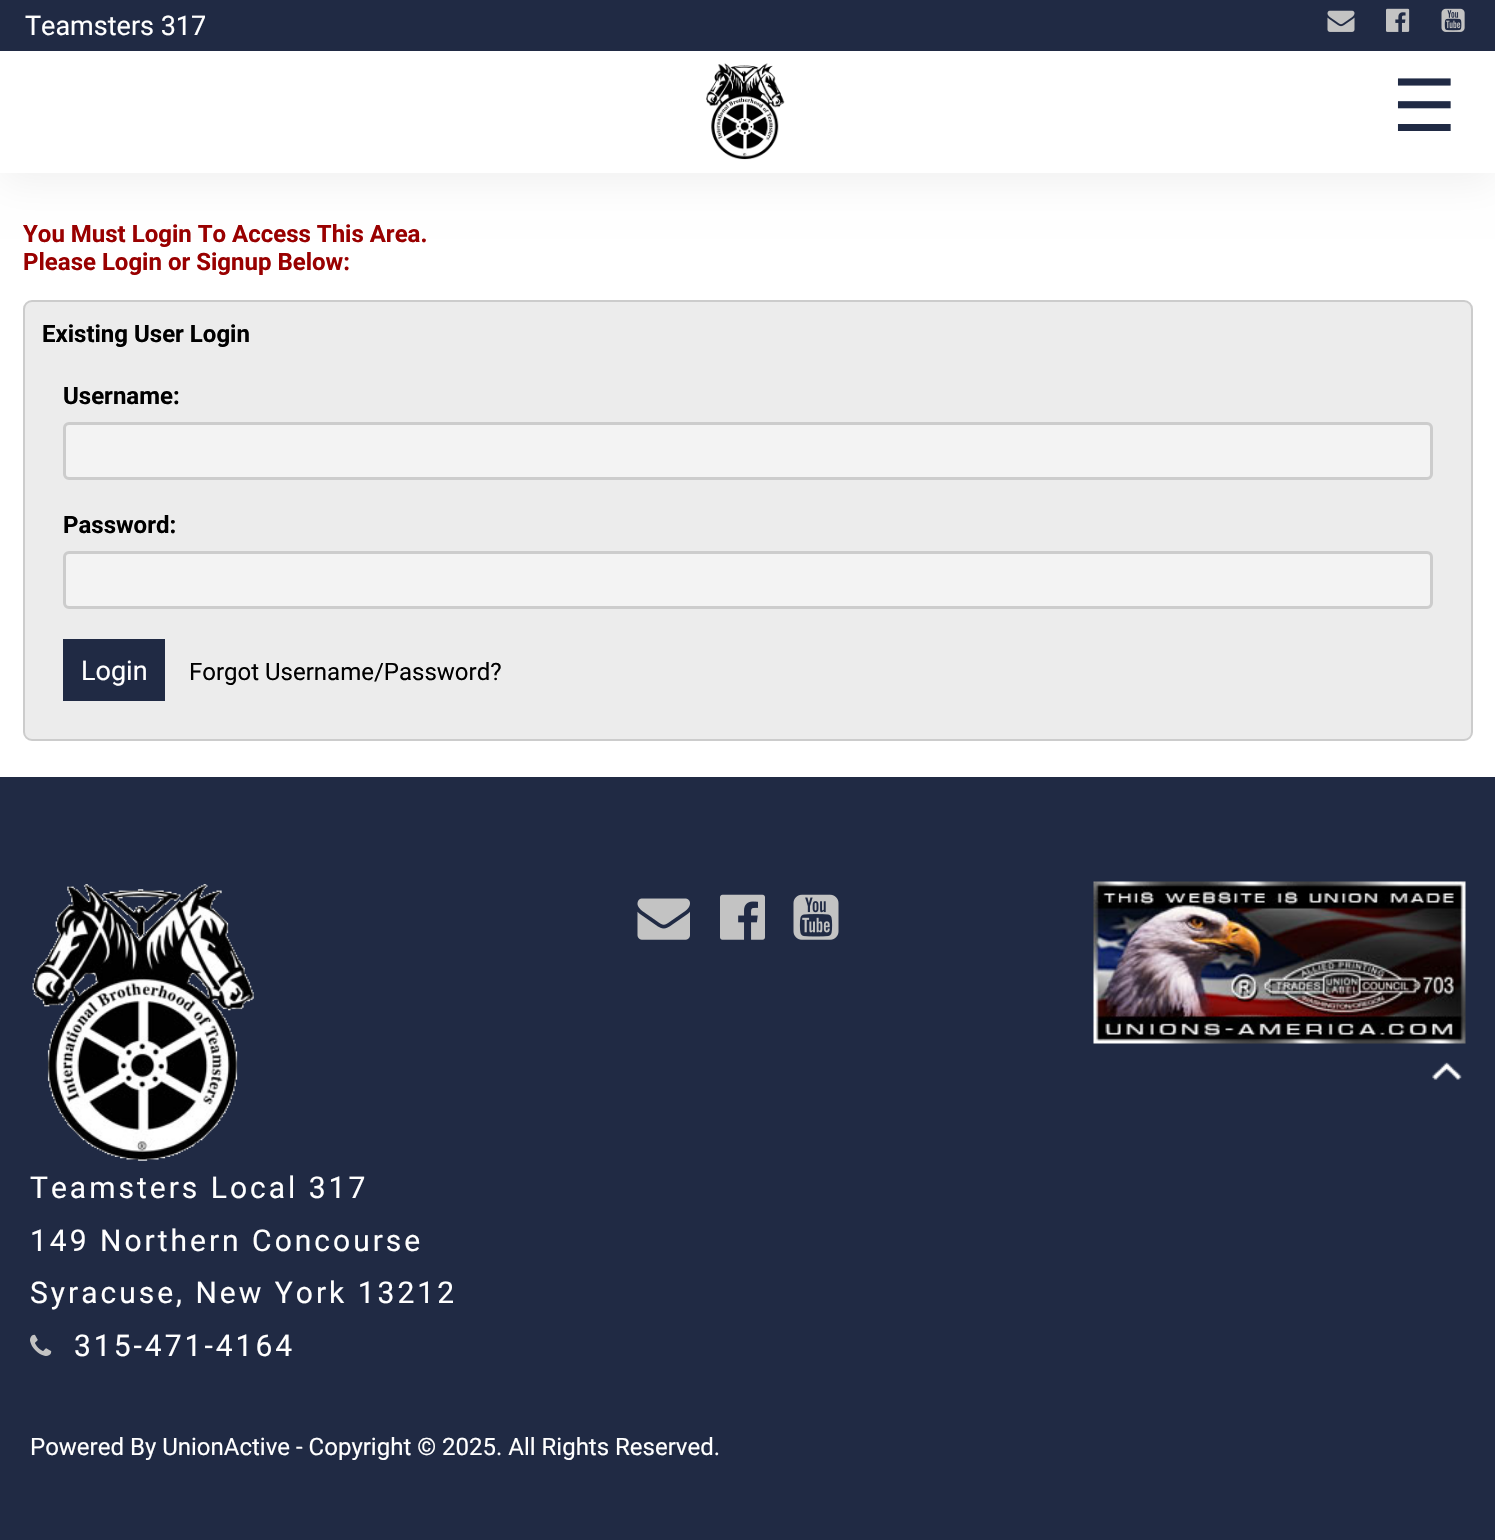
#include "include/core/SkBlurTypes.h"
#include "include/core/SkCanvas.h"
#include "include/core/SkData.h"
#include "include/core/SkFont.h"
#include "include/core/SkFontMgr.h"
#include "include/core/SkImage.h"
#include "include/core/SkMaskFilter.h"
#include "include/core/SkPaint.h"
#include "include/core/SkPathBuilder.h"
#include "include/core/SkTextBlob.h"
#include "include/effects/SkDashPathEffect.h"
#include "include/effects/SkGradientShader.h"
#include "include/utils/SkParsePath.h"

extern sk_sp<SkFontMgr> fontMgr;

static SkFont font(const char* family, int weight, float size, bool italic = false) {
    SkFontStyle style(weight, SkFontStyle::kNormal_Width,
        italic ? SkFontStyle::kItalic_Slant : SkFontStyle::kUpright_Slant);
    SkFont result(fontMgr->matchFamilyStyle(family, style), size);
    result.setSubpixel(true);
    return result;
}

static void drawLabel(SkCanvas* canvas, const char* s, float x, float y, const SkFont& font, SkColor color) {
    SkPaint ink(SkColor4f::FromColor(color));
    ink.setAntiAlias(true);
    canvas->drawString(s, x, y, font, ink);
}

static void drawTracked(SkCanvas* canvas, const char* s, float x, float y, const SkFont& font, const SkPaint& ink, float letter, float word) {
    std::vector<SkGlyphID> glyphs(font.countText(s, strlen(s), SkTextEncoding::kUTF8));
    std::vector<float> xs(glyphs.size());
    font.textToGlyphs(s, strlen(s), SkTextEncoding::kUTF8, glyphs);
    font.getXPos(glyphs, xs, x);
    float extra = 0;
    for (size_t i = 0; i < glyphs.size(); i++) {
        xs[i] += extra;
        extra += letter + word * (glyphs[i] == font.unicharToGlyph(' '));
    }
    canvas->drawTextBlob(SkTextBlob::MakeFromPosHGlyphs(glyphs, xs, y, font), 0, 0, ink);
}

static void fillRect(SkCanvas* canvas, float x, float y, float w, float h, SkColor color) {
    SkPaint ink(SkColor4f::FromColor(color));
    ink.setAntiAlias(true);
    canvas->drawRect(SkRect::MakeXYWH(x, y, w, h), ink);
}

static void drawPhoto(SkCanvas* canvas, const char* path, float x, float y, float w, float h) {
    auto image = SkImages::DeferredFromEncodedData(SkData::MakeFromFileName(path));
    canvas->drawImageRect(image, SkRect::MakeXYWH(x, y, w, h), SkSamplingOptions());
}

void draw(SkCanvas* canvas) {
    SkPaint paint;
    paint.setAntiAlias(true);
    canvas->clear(0xFFFFFFFF);
    paint.setColor(0x0F000000);
    paint.setMaskFilter(SkMaskFilter::MakeBlur(kNormal_SkBlurStyle, 19));
    canvas->drawRect(SkRect::MakeXYWH(0, 8, 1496, 174), paint);
    paint.setMaskFilter(nullptr);
    fillRect(canvas, 0, 0, 1495, 51, 0xFF202A44);
    SkFont font1 = font("Roboto", 400, 27);
    drawLabel(canvas, "Teamsters 317", 25, 35, font1, 0xFFFFFFFF);
    drawPhoto(canvas, "assets/img1.png", 1327, 10, 28, 22);
    drawPhoto(canvas, "assets/img2.png", 1386, 8, 24, 24);
    drawPhoto(canvas, "assets/img3.png", 1441, 8, 24, 24);
    fillRect(canvas, 0, 51, 1495, 122, 0xFFFFFFFF);
    drawPhoto(canvas, "assets/img4.png", 706, 63, 79, 97);
    SkFont font2 = font("DejaVu Sans", 400, 72);
    drawLabel(canvas, "☰", 1392, 131, font2, 0xFF202A44);
    SkFont font3 = font("Roboto", 700, 24);
    drawLabel(canvas, "You Must Login To Access This Area.", 23, 242, font3, 0xFF990000);
    drawLabel(canvas, "Please Login or Signup Below:", 23, 270, font3, 0xFF990000);
    paint.setColor(0xFFECECEC);
    canvas->drawRoundRect(SkRect::MakeXYWH(24, 301, 1448, 439), 8, 8, paint);
    paint.setStroke(true);
    paint.setStrokeWidth(2);
    paint.setColor(0xFFCCCCCC);
    canvas->drawRoundRect(SkRect::MakeXYWH(24, 301, 1448, 439), 8, 8, paint);
    drawLabel(canvas, "Existing User Login", 42, 342, font3, 0xFF000000);
    drawLabel(canvas, "Username:", 63, 404, font3, 0xFF000000);
    paint.setStroke(false);
    paint.setColor(0xFFF3F3F3);
    canvas->drawRoundRect(SkRect::MakeXYWH(64.5f, 423.5f, 1367, 55), 4.5f, 4.5f, paint);
    paint.setStroke(true);
    paint.setStrokeWidth(3);
    paint.setColor(0xFFCCCCCC);
    canvas->drawRoundRect(SkRect::MakeXYWH(64.5f, 423.5f, 1367, 55), 4.5f, 4.5f, paint);
    drawLabel(canvas, "Password:", 63, 533, font3, 0xFF000000);
    paint.setStroke(false);
    paint.setColor(0xFFF3F3F3);
    canvas->drawRoundRect(SkRect::MakeXYWH(64.5f, 552.5f, 1367, 55), 4.5f, 4.5f, paint);
    paint.setStroke(true);
    paint.setColor(0xFFCCCCCC);
    canvas->drawRoundRect(SkRect::MakeXYWH(64.5f, 552.5f, 1367, 55), 4.5f, 4.5f, paint);
    fillRect(canvas, 63, 639, 102, 62, 0xFF202A44);
    drawLabel(canvas, "Login", 81, 680, font1, 0xFFFFFFFF);
    SkFont font4 = font("Roboto", 400, 24);
    drawLabel(canvas, "Forgot Username/Password?", 189, 680, font4, 0xFF000000);
    fillRect(canvas, 0, 777, 1495, 763, 0xFF202A44);
    drawPhoto(canvas, "assets/img5.png", 637, 898, 53, 42);
    drawPhoto(canvas, "assets/img6.png", 720, 894, 45, 46);
    drawPhoto(canvas, "assets/img7.png", 793, 894, 46, 46);
    drawPhoto(canvas, "assets/img8.png", 1093, 881, 373, 163);
    drawPhoto(canvas, "assets/img9.png", 1432, 1062, 30, 18);
    drawPhoto(canvas, "assets/img10.png", 32, 884, 222, 277);
    SkFont font5 = font("Roboto", 400, 30);
    paint.setStroke(false);
    paint.setColor(0xFFFFFFFF);
    drawTracked(canvas, "Teamsters Local 317", 30, 1198, font5, paint, 3, 0);
    drawTracked(canvas, "149 Northern Concourse", 30, 1251, font5, paint, 3, 0);
    drawTracked(canvas, "Syracuse, New York 13212", 30, 1303, font5, paint, 3, 0);
    drawPhoto(canvas, "assets/img11.png", 30, 1334, 22, 22);
    drawTracked(canvas, "315-471-4164", 74, 1356, font5, paint, 3, 0);
    drawLabel(canvas, "Powered By UnionActive - Copyright © 2025. All Rights Reserved.", 30, 1455, font4, 0xFFFFFFFF);
}
